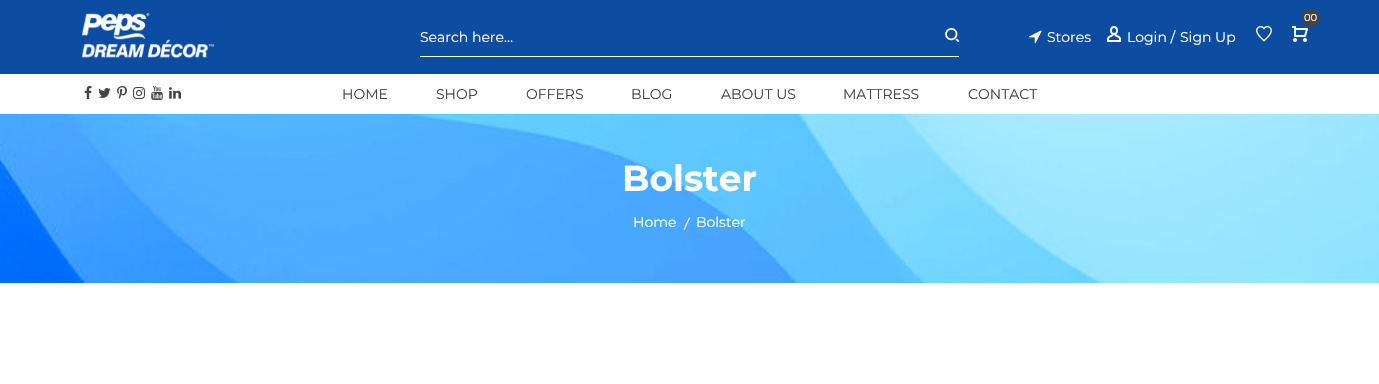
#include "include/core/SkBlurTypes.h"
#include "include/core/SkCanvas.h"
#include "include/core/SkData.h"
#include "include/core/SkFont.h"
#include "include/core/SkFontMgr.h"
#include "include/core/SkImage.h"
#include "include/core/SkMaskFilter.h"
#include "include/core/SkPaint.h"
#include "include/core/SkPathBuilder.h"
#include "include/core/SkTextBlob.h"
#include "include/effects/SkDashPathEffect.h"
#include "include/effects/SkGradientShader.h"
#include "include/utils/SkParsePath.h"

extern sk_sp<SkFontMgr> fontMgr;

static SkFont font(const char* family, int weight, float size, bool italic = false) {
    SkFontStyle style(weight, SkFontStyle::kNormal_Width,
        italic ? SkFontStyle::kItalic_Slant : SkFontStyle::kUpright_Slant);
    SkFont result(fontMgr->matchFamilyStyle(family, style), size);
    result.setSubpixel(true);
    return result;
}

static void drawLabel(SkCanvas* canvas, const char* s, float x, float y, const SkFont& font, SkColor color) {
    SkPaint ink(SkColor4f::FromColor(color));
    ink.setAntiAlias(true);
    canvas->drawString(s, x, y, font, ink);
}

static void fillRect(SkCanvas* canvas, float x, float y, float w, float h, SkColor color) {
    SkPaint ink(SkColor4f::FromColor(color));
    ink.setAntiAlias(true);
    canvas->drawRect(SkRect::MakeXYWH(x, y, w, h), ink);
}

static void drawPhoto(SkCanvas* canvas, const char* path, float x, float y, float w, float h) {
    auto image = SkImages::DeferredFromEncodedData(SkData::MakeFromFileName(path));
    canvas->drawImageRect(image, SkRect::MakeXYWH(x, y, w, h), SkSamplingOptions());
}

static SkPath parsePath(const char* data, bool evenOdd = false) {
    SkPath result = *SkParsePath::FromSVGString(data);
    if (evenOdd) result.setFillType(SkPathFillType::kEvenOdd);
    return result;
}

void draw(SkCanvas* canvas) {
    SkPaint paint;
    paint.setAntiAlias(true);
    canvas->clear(0xFFFFFFFF);
    fillRect(canvas, 0, 0, 1379, 74, 0xFF0C4DA1);
    drawPhoto(canvas, "assets/img1.png", 81, 13, 134, 45);
    fillRect(canvas, 420, 56, 539, 1, 0xFFFFFFFF);
    SkFont font1 = font("Montserrat", 400, 14);
    drawLabel(canvas, "Search here…", 420, 42, font1, 0xFFFFFFFF);
    drawPhoto(canvas, "assets/img2.png", 945, 28, 15, 14);
    drawPhoto(canvas, "assets/img3.png", 1292, 26, 16, 16);
    paint.setColor(0xFF4A4141);
    canvas->drawCircle(1311, 18, 9, paint);
    SkFont font2 = font("Montserrat", 400, 10);
    drawLabel(canvas, "00", 1304, 21, font2, 0xFFFFFFFF);
    drawPhoto(canvas, "assets/img4.png", 1029, 30, 13, 14);
    drawLabel(canvas, "Stores", 1047, 42, font1, 0xFFFFFFFF);
    drawPhoto(canvas, "assets/img5.png", 1107, 26, 14, 16);
    drawLabel(canvas, "Login /", 1127, 42, font1, 0xFFFFFFFF);
    drawLabel(canvas, "Sign Up", 1180, 42, font1, 0xFFFFFFFF);
    drawPhoto(canvas, "assets/img6.png", 1256, 26, 16, 16);
    drawPhoto(canvas, "assets/img7.png", 84, 86, 8, 13);
    drawPhoto(canvas, "assets/img8.png", 98, 88, 13, 10);
    drawPhoto(canvas, "assets/img9.png", 117, 86, 10, 13);
    drawPhoto(canvas, "assets/img10.png", 133, 87, 12, 12);
    drawPhoto(canvas, "assets/img11.png", 151, 86, 12, 14);
    drawPhoto(canvas, "assets/img12.png", 169, 87, 12, 12);
    drawLabel(canvas, "HOME", 342, 99, font1, 0xFF4A4141);
    drawLabel(canvas, "SHOP", 436, 99, font1, 0xFF4A4141);
    drawLabel(canvas, "OFFERS", 526, 99, font1, 0xFF4A4141);
    drawLabel(canvas, "BLOG", 631, 99, font1, 0xFF4A4141);
    drawLabel(canvas, "ABOUT US", 721, 99, font1, 0xFF4A4141);
    drawLabel(canvas, "MATTRESS", 843, 99, font1, 0xFF4A4141);
    drawLabel(canvas, "CONTACT", 968, 99, font1, 0xFF4A4141);
    drawPhoto(canvas, "assets/img13.png", 0, 114, 1379, 169);
    SkFont font3 = font("Montserrat", 700, 36);
    drawLabel(canvas, "Bolster", 622, 191, font3, 0xFFFFFFFF);
    drawLabel(canvas, "Home", 633, 227, font1, 0xFFFFFFFF);
    paint.setColor(0xFFFFFFFF);
    canvas->drawPath(parsePath("M690 218L684.5 230L683.5 229.5L689 217.5Z"), paint);
    drawLabel(canvas, "Bolster", 696, 227, font1, 0xFFFFFFFF);
}
